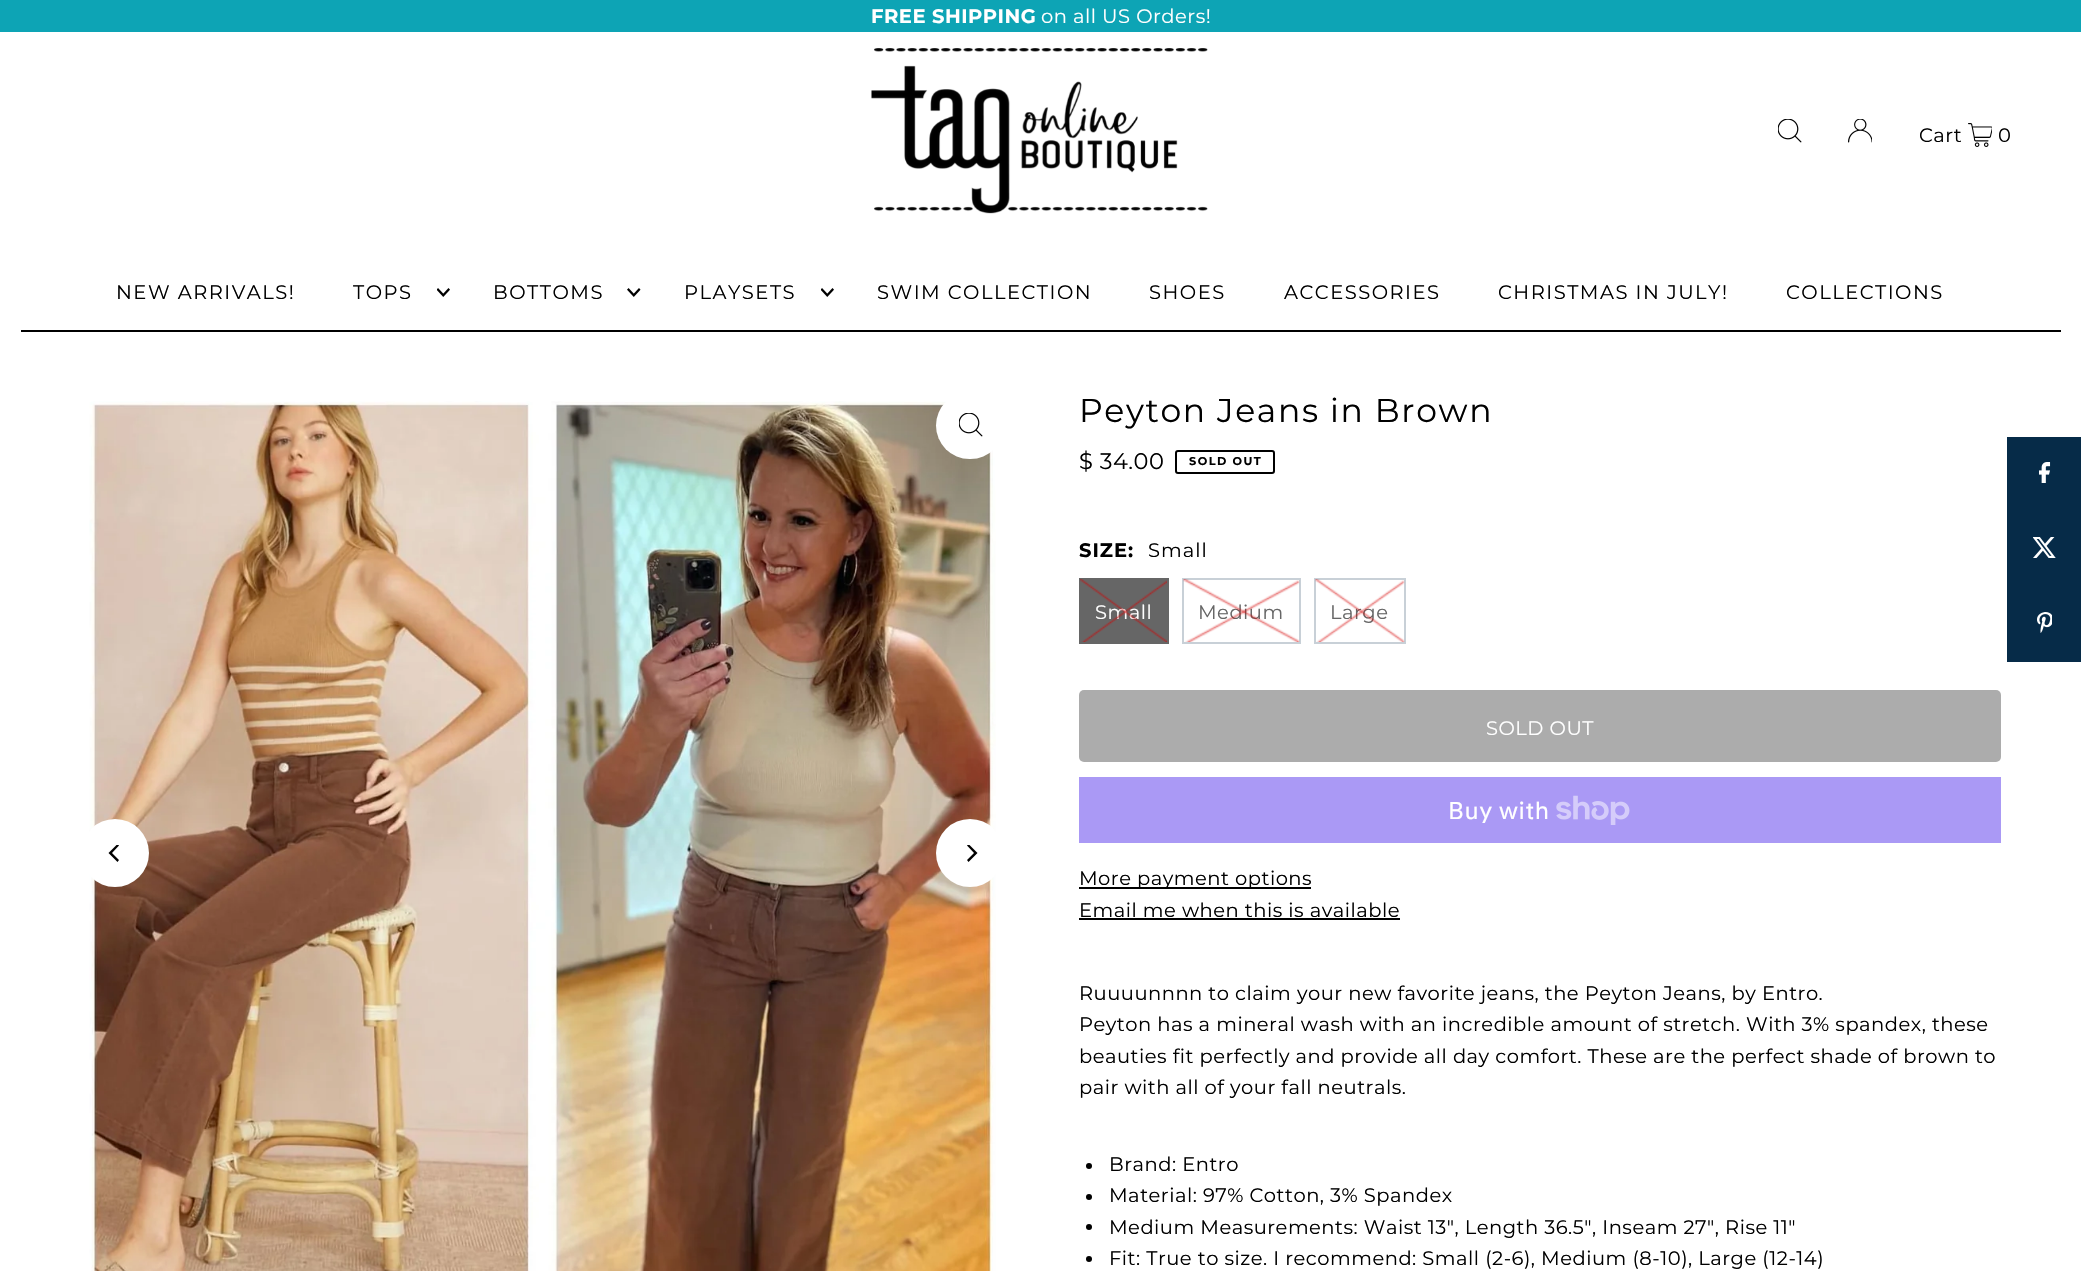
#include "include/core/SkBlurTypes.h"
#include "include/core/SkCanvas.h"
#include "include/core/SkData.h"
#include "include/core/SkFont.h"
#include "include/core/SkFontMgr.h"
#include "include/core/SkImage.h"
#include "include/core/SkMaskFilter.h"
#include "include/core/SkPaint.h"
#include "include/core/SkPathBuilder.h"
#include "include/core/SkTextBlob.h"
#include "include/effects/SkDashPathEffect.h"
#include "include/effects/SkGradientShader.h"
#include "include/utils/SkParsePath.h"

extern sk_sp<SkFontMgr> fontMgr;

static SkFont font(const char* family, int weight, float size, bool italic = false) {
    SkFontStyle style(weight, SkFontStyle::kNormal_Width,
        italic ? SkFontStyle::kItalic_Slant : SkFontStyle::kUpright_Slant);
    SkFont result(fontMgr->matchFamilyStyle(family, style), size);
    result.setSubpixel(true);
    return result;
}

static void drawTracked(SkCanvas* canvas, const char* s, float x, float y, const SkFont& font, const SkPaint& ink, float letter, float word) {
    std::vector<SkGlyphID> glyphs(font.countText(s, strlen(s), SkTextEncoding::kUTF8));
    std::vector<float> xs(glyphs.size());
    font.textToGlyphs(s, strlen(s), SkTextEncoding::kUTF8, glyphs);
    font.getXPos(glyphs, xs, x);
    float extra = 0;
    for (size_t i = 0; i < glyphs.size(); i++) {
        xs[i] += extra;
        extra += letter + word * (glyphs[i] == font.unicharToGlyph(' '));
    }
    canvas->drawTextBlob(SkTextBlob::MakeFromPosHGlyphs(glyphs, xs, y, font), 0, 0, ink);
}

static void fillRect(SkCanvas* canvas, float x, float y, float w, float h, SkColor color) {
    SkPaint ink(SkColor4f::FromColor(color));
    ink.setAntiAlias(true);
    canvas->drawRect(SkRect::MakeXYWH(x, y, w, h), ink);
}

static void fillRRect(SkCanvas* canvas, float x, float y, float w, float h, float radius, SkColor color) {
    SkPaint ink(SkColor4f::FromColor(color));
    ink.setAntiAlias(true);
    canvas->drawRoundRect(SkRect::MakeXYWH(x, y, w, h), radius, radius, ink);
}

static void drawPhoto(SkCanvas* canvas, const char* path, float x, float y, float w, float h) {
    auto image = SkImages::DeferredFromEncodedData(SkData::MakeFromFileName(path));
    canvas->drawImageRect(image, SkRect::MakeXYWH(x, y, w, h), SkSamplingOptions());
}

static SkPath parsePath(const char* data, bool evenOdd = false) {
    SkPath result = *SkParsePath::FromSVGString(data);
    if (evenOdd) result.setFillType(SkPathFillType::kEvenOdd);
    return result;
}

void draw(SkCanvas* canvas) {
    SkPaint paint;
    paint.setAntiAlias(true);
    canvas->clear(0xFFFFFFFF);
    fillRect(canvas, 0, 0, 2081, 32, 0xFF0DA4B5);
    SkFont font1 = font("Montserrat", 700, 19.5f);
    paint.setColor(0xFFFFFFFF);
    drawTracked(canvas, "FREE SHIPPING", 871, 23, font1, paint, 0.5f, 0);
    SkFont font2 = font("Montserrat", 100, 19.5f);
    drawTracked(canvas, "on all US Orders!", 1041, 23, font2, paint, 0.5f, 0);
    fillRect(canvas, 21, 330, 2040, 2, 0xFF000000);
    drawPhoto(canvas, "assets/img1.png", 871, 48, 337, 166);
    drawPhoto(canvas, "assets/img2.png", 1778, 119, 24, 24);
    drawPhoto(canvas, "assets/img3.png", 1848, 119, 24, 24);
    paint.setColor(0xFF000000);
    drawTracked(canvas, "Cart", 1919, 142, font2, paint, 0.5f, 0);
    drawPhoto(canvas, "assets/img4.png", 1968, 123, 24, 24);
    drawTracked(canvas, "0", 1998, 142, font2, paint, 0.5f, 0);
    drawTracked(canvas, "NEW ARRIVALS!", 116, 299, font2, paint, 1.5f, 0);
    drawTracked(canvas, "TOPS", 353, 299, font2, paint, 1.5f, 0);
    drawPhoto(canvas, "assets/img5.png", 437, 288, 13, 9);
    drawTracked(canvas, "BOTTOMS", 493, 299, font2, paint, 1.5f, 0);
    drawPhoto(canvas, "assets/img6.png", 627, 288, 14, 9);
    drawTracked(canvas, "PLAYSETS", 684, 299, font2, paint, 1.5f, 0);
    drawPhoto(canvas, "assets/img5.png", 821, 288, 13, 9);
    drawTracked(canvas, "SWIM COLLECTION", 877, 299, font2, paint, 1.5f, 0);
    drawTracked(canvas, "SHOES", 1149, 299, font2, paint, 1.5f, 0);
    drawTracked(canvas, "ACCESSORIES", 1284, 299, font2, paint, 1.5f, 0);
    drawTracked(canvas, "CHRISTMAS IN JULY!", 1498, 299, font2, paint, 1.5f, 0);
    drawTracked(canvas, "COLLECTIONS", 1786, 299, font2, paint, 1.5f, 0);
    drawPhoto(canvas, "assets/img7.png", 89, 401, 907, 870);
    fillRRect(canvas, 936, 392, 68, 67, 33.5f, 0xFFFFFFFF);
    drawPhoto(canvas, "assets/img2.png", 959, 413, 24, 24);
    paint.setColor(0xFFFFFFFF);
    canvas->drawCircle(115, 853, 34, paint);
    canvas->save();
    canvas->clipRect(SkRect::MakeXYWH(107, 845, 18, 18));
    paint.setColor(0xFF000000);
    canvas->drawPath(parsePath("M108.5 853L117.5 862L119 860L112 853L119 845.5L117.5 844Z"), paint);
    canvas->restore();
    paint.setColor(0xFFFFFFFF);
    canvas->drawCircle(970, 853, 34, paint);
    canvas->save();
    canvas->clipRect(SkRect::MakeXYWH(962, 845, 18, 18));
    paint.setColor(0xFF000000);
    canvas->drawPath(parsePath("M977.5 853L968.5 844L967 845.5L974 853L967 860L968.5 862Z"), paint);
    canvas->restore();
    SkFont font3 = font("Montserrat", 100, 33);
    drawTracked(canvas, "Peyton Jeans in Brown", 1079, 422, font3, paint, 1.65f, 0);
    SkFont font4 = font("Montserrat", 100, 22.5f);
    drawTracked(canvas, "$ 34.00", 1079, 469, font4, paint, 0.5f, 0);
    paint.setStroke(true);
    paint.setStrokeWidth(2);
    canvas->drawRoundRect(SkRect::MakeXYWH(1176, 451, 98, 22), 2, 2, paint);
    SkFont font5 = font("Montserrat", 700, 11.25f);
    paint.setStroke(false);
    drawTracked(canvas, "SOLD OUT", 1189, 465, font5, paint, 1.5f, 0);
    drawTracked(canvas, "SIZE:", 1079, 557, font1, paint, 1, 0);
    drawTracked(canvas, "Small", 1148, 557, font2, paint, 1, 0);
    fillRect(canvas, 1079, 578, 90, 66, 0xFF666666);
    paint.setColor(0xFFFFFFFF);
    drawTracked(canvas, "Small", 1095, 619, font2, paint, 0.5f, 0);
    drawPhoto(canvas, "assets/img8.png", 1080, 579, 87, 63);
    paint.setStroke(true);
    paint.setColor(0xFFC8D0D7);
    canvas->drawRect(SkRect::MakeXYWH(1183, 579, 117, 64), paint);
    paint.setStroke(false);
    paint.setColor(0xFF666666);
    drawTracked(canvas, "Medium", 1198, 619, font2, paint, 0.5f, 0);
    drawPhoto(canvas, "assets/img9.png", 1183, 579, 117, 63);
    paint.setStroke(true);
    paint.setColor(0xFFC8D0D7);
    canvas->drawRect(SkRect::MakeXYWH(1315, 579, 90, 64), paint);
    paint.setStroke(false);
    paint.setColor(0xFF666666);
    drawTracked(canvas, "Large", 1330, 619, font2, paint, 0.5f, 0);
    drawPhoto(canvas, "assets/img10.png", 1315, 579, 90, 63);
    fillRRect(canvas, 1079, 690, 922, 72, 5, 0xFFACACAC);
    paint.setColor(0xFFFFFFFF);
    drawTracked(canvas, "SOLD OUT", 1486, 735, font2, paint, 0.5f, 0);
    fillRect(canvas, 1079, 777, 922, 66, 0xFFAA99F5);
    SkFont font6 = font("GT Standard", 400, 24);
    drawTracked(canvas, "Buy with", 1448, 819, font6, paint, 0.5f, 0);
    drawPhoto(canvas, "assets/img11.png", 1556, 795, 74, 30);
    fillRect(canvas, 1079, 887, 232, 2, 0xFF000000);
    paint.setColor(0xFF000000);
    drawTracked(canvas, "More payment options", 1079, 885, font2, paint, 0.5f, 0);
    drawTracked(canvas, "Email me when this is available", 1079, 917, font2, paint, 0.5f, 0);
    fillRect(canvas, 1079, 918, 321, 2, 0xFF000000);
    drawTracked(canvas, "Ruuuunnnn to claim your new favorite jeans, the Peyton Jeans, by Entro.", 1079, 1000, font2, paint, 0.5f, 0);
    drawTracked(canvas, "Peyton has a mineral wash with an incredible amount of stretch. With 3% spandex, these", 1079, 1031, font2, paint, 0.5f, 0);
    drawTracked(canvas, "beauties fit perfectly and provide all day comfort. These are the perfect shade of brown to", 1079, 1063, font2, paint, 0.5f, 0);
    drawTracked(canvas, "pair with all of your fall neutrals.", 1079, 1094, font2, paint, 0.5f, 0);
    canvas->drawCircle(1089, 1166, 3, paint);
    drawTracked(canvas, "Brand: Entro", 1109, 1171, font2, paint, 0.5f, 0);
    canvas->drawCircle(1089, 1197, 3, paint);
    drawTracked(canvas, "Material: 97% Cotton, 3% Spandex", 1109, 1202, font2, paint, 0.5f, 0);
    canvas->drawCircle(1089, 1227, 3, paint);
    drawTracked(canvas, "Medium Measurements: Waist 13\", Length 36.5\", Inseam 27\", Rise 11\"", 1109, 1234, font2, paint, 0.5f, 0);
    canvas->drawCircle(1089, 1259, 3, paint);
    drawTracked(canvas, "Fit: True to size. I recommend: Small (2-6), Medium (8-10), Large (12-14)", 1109, 1265, font2, paint, 0.5f, 0);
    fillRect(canvas, 2007, 437, 74, 225, 0xFF062B48);
    drawPhoto(canvas, "assets/img12.png", 2039, 462, 12, 21);
    drawPhoto(canvas, "assets/img13.png", 2033, 537, 23, 21);
    drawPhoto(canvas, "assets/img14.png", 2037, 612, 15, 21);
}
